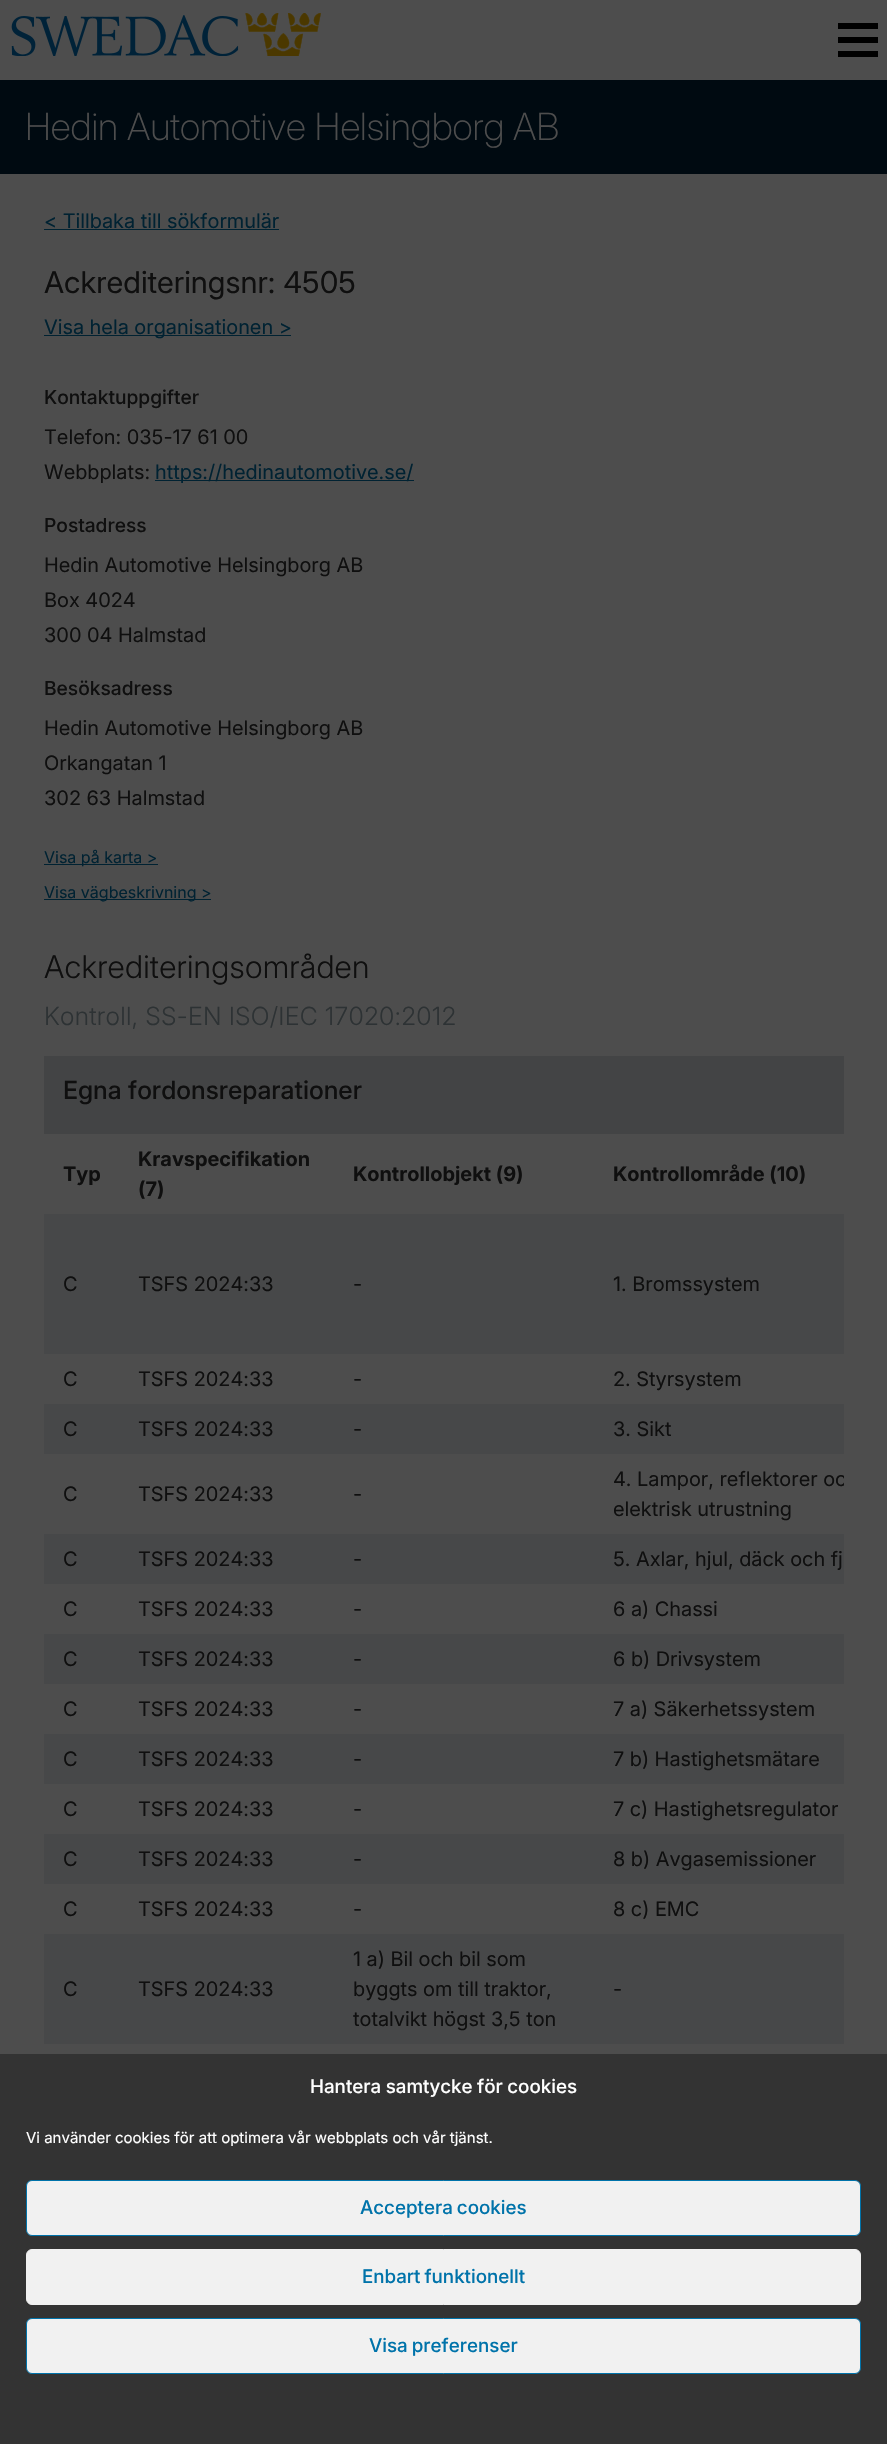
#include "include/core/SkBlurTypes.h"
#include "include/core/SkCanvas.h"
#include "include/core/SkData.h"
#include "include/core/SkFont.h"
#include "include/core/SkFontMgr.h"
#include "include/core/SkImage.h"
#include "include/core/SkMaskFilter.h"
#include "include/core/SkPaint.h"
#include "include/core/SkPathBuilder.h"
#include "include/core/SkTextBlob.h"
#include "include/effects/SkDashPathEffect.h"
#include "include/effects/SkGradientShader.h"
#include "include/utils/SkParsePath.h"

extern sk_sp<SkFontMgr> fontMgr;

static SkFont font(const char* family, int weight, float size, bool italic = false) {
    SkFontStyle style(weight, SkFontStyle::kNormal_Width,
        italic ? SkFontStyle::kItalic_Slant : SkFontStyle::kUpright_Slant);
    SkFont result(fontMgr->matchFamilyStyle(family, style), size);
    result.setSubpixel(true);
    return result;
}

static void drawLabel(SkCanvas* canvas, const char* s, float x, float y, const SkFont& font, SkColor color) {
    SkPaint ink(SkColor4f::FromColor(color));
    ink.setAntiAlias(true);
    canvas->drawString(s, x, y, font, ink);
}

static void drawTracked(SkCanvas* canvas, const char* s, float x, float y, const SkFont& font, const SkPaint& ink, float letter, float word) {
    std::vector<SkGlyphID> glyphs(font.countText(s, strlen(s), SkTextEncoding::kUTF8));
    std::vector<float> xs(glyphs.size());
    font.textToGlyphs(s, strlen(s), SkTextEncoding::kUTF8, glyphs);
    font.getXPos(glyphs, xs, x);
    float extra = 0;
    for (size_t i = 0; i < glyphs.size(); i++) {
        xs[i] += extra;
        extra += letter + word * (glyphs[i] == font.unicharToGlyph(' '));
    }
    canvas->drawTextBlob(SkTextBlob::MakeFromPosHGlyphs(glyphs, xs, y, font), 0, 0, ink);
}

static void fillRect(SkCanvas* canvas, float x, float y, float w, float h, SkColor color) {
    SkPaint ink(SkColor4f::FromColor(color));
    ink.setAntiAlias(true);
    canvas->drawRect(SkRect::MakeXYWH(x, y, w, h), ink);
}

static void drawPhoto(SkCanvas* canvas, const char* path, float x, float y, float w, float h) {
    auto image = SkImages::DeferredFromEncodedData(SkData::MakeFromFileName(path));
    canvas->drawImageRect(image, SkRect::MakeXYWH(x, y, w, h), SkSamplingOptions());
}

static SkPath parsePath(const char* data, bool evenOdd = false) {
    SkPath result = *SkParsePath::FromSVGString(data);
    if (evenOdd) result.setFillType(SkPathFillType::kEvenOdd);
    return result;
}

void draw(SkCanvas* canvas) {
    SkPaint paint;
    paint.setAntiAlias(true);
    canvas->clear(0xFF4D4D4D);
    drawPhoto(canvas, "assets/img1.png", 11, 13, 310, 43);
    canvas->save();
    canvas->clipRect(SkRect::MakeXYWH(838, 20, 40, 40));
    paint.setColor(0xFF000000);
    canvas->drawPath(parsePath("M835 23H880V29H835ZM835 37H880V43H835ZM835 51H880V57H835Z"), paint);
    canvas->restore();
    fillRect(canvas, 0, 80, 887, 94, 0xFF000A11);
    SkFont font1 = font("Inter", 200, 37.5f);
    drawLabel(canvas, "Hedin Automotive Helsingborg AB", 25, 140, font1, 0xFF4D4D4D);
    SkFont font2 = font("Inter", 400, 20);
    drawLabel(canvas, "< Tillbaka till sökformulär", 44, 228, font2, 0xFF002232);
    fillRect(canvas, 44, 229, 235, 1, 0xFF002232);
    SkFont font3 = font("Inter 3", 400, 30);
    drawLabel(canvas, "Ackrediteringsnr: 4505", 44, 293, font3, 0xFF0F0F0F);
    fillRect(canvas, 44, 335, 247, 1, 0xFF002232);
    drawLabel(canvas, "Visa hela organisationen >", 44, 334, font2, 0xFF002232);
    SkFont font4 = font("Inter", 500, 19.25f);
    drawLabel(canvas, "Kontaktuppgifter", 44, 404, font4, 0xFF0F0F0F);
    drawLabel(canvas, "Telefon: 035-17 61 00", 44, 444, font2, 0xFF0F0F0F);
    drawLabel(canvas, "Webbplats:", 44, 479, font2, 0xFF0F0F0F);
    fillRect(canvas, 155, 480, 259, 1, 0xFF002232);
    drawLabel(canvas, "https://hedinautomotive.se/", 155, 479, font2, 0xFF002232);
    drawLabel(canvas, "Postadress", 44, 532, font4, 0xFF0F0F0F);
    drawLabel(canvas, "Hedin Automotive Helsingborg AB", 44, 572, font2, 0xFF0F0F0F);
    drawLabel(canvas, "Box 4024", 44, 607, font2, 0xFF0F0F0F);
    drawLabel(canvas, "300 04 Halmstad", 44, 642, font2, 0xFF0F0F0F);
    drawLabel(canvas, "Besöksadress", 44, 695, font4, 0xFF0F0F0F);
    drawLabel(canvas, "Hedin Automotive Helsingborg AB", 44, 735, font2, 0xFF0F0F0F);
    drawLabel(canvas, "Orkangatan 1", 44, 770, font2, 0xFF0F0F0F);
    drawLabel(canvas, "302 63 Halmstad", 44, 805, font2, 0xFF0F0F0F);
    fillRect(canvas, 44, 864, 114, 1, 0xFF002232);
    SkFont font5 = font("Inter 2", 400, 16);
    drawLabel(canvas, "Visa på karta >", 44, 863, font5, 0xFF002232);
    fillRect(canvas, 44, 899, 167, 1, 0xFF002232);
    drawLabel(canvas, "Visa vägbeskrivning >", 44, 898, font5, 0xFF002232);
    SkFont font6 = font("Inter", 300, 31.25f);
    paint.setColor(0xFF0F0F0F);
    drawTracked(canvas, "Ackrediteringsområden", 44, 978, font6, paint, 0.25f, 0);
    SkFont font7 = font("Inter 2", 300, 25);
    paint.setColor(0xFF2D3234);
    drawTracked(canvas, "Kontroll, SS-EN ISO/IEC 17020:2012", 44, 1025, font7, paint, 0.25f, 0);
    fillRect(canvas, 44, 1056, 800, 78, 0xFF434445);
    SkFont font8 = font("Inter 2", 500, 25);
    drawLabel(canvas, "Egna fordonsreparationer", 63, 1099, font8, 0xFF0F0F0F);
    SkFont font9 = font("Inter", 700, 20);
    drawLabel(canvas, "Typ", 63, 1181, font9, 0xFF0F0F0F);
    drawLabel(canvas, "Kravspecifikation", 138, 1166, font9, 0xFF0F0F0F);
    drawLabel(canvas, "(7)", 138, 1196, font9, 0xFF0F0F0F);
    drawLabel(canvas, "Kontrollobjekt (9)", 353, 1181, font9, 0xFF0F0F0F);
    drawLabel(canvas, "Kontrollområde (10)", 613, 1181, font9, 0xFF0F0F0F);
    fillRect(canvas, 44, 1214, 800, 140, 0xFF474849);
    drawLabel(canvas, "C", 63, 1291, font2, 0xFF0F0F0F);
    drawLabel(canvas, "TSFS 2024:33", 138, 1291, font2, 0xFF0F0F0F);
    drawLabel(canvas, "-", 353, 1291, font2, 0xFF0F0F0F);
    drawLabel(canvas, "1. Bromssystem", 613, 1291, font2, 0xFF0F0F0F);
    drawLabel(canvas, "C", 63, 1386, font2, 0xFF0F0F0F);
    drawLabel(canvas, "TSFS 2024:33", 138, 1386, font2, 0xFF0F0F0F);
    drawLabel(canvas, "-", 353, 1386, font2, 0xFF0F0F0F);
    drawLabel(canvas, "2. Styrsystem", 613, 1386, font2, 0xFF0F0F0F);
    fillRect(canvas, 44, 1404, 800, 50, 0xFF474849);
    drawLabel(canvas, "C", 63, 1436, font2, 0xFF0F0F0F);
    drawLabel(canvas, "TSFS 2024:33", 138, 1436, font2, 0xFF0F0F0F);
    drawLabel(canvas, "-", 353, 1436, font2, 0xFF0F0F0F);
    drawLabel(canvas, "3. Sikt", 613, 1436, font2, 0xFF0F0F0F);
    drawLabel(canvas, "C", 63, 1501, font2, 0xFF0F0F0F);
    drawLabel(canvas, "TSFS 2024:33", 138, 1501, font2, 0xFF0F0F0F);
    drawLabel(canvas, "-", 353, 1501, font2, 0xFF0F0F0F);
    canvas->save();
    canvas->clipRect(SkRect::MakeXYWH(44, 1056, 800, 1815));
    drawLabel(canvas, "4. Lampor, reflektorer oc", 613, 1486, font2, 0xFF0F0F0F);
    canvas->restore();
    drawLabel(canvas, "elektrisk utrustning", 613, 1516, font2, 0xFF0F0F0F);
    fillRect(canvas, 44, 1534, 800, 50, 0xFF474849);
    drawLabel(canvas, "C", 63, 1566, font2, 0xFF0F0F0F);
    drawLabel(canvas, "TSFS 2024:33", 138, 1566, font2, 0xFF0F0F0F);
    drawLabel(canvas, "-", 353, 1566, font2, 0xFF0F0F0F);
    drawLabel(canvas, "5. Axlar, hjul, däck och fj", 613, 1566, font2, 0xFF0F0F0F);
    drawLabel(canvas, "C", 63, 1616, font2, 0xFF0F0F0F);
    drawLabel(canvas, "TSFS 2024:33", 138, 1616, font2, 0xFF0F0F0F);
    drawLabel(canvas, "-", 353, 1616, font2, 0xFF0F0F0F);
    drawLabel(canvas, "6 a) Chassi", 613, 1616, font2, 0xFF0F0F0F);
    fillRect(canvas, 44, 1634, 800, 50, 0xFF474849);
    drawLabel(canvas, "C", 63, 1666, font2, 0xFF0F0F0F);
    drawLabel(canvas, "TSFS 2024:33", 138, 1666, font2, 0xFF0F0F0F);
    drawLabel(canvas, "-", 353, 1666, font2, 0xFF0F0F0F);
    drawLabel(canvas, "6 b) Drivsystem", 613, 1666, font2, 0xFF0F0F0F);
    drawLabel(canvas, "C", 63, 1716, font2, 0xFF0F0F0F);
    drawLabel(canvas, "TSFS 2024:33", 138, 1716, font2, 0xFF0F0F0F);
    drawLabel(canvas, "-", 353, 1716, font2, 0xFF0F0F0F);
    drawLabel(canvas, "7 a) Säkerhetssystem", 613, 1716, font2, 0xFF0F0F0F);
    fillRect(canvas, 44, 1734, 800, 50, 0xFF474849);
    drawLabel(canvas, "C", 63, 1766, font2, 0xFF0F0F0F);
    drawLabel(canvas, "TSFS 2024:33", 138, 1766, font2, 0xFF0F0F0F);
    drawLabel(canvas, "-", 353, 1766, font2, 0xFF0F0F0F);
    drawLabel(canvas, "7 b) Hastighetsmätare", 613, 1766, font2, 0xFF0F0F0F);
    drawLabel(canvas, "C", 63, 1816, font2, 0xFF0F0F0F);
    drawLabel(canvas, "TSFS 2024:33", 138, 1816, font2, 0xFF0F0F0F);
    drawLabel(canvas, "-", 353, 1816, font2, 0xFF0F0F0F);
    drawLabel(canvas, "7 c) Hastighetsregulator", 613, 1816, font2, 0xFF0F0F0F);
    fillRect(canvas, 44, 1834, 800, 50, 0xFF474849);
    drawLabel(canvas, "C", 63, 1866, font2, 0xFF0F0F0F);
    drawLabel(canvas, "TSFS 2024:33", 138, 1866, font2, 0xFF0F0F0F);
    drawLabel(canvas, "-", 353, 1866, font2, 0xFF0F0F0F);
    drawLabel(canvas, "8 b) Avgasemissioner", 613, 1866, font2, 0xFF0F0F0F);
    drawLabel(canvas, "C", 63, 1916, font2, 0xFF0F0F0F);
    drawLabel(canvas, "TSFS 2024:33", 138, 1916, font2, 0xFF0F0F0F);
    drawLabel(canvas, "-", 353, 1916, font2, 0xFF0F0F0F);
    drawLabel(canvas, "8 c) EMC", 613, 1916, font2, 0xFF0F0F0F);
    fillRect(canvas, 44, 1934, 800, 110, 0xFF474849);
    drawLabel(canvas, "C", 63, 1996, font2, 0xFF0F0F0F);
    drawLabel(canvas, "TSFS 2024:33", 138, 1996, font2, 0xFF0F0F0F);
    drawLabel(canvas, "1 a) Bil och bil som", 353, 1966, font2, 0xFF0F0F0F);
    drawLabel(canvas, "byggts om till traktor,", 353, 1996, font2, 0xFF0F0F0F);
    drawLabel(canvas, "totalvikt högst 3,5 ton", 353, 2026, font2, 0xFF0F0F0F);
    drawLabel(canvas, "-", 613, 1996, font2, 0xFF0F0F0F);
    fillRect(canvas, 0, 2054, 887, 390, 0xFF333333);
    SkFont font10 = font("Inter 3", 500, 18.75f);
    paint.setColor(0xFFFFFFFF);
    drawTracked(canvas, "Hantera samtycke för cookies", 310, 2093, font10, paint, 0, -0.5f);
    SkFont font11 = font("Inter 2", 400, 15);
    drawLabel(canvas, "Vi använder cookies för att optimera vår webbplats och vår tjänst.", 26, 2143, font11, 0xFFFFFFFF);
    paint.setColor(0xFFF1F1F1);
    canvas->drawRoundRect(SkRect::MakeXYWH(26.5f, 2180.5f, 834, 55), 5.5f, 5.5f, paint);
    paint.setStroke(true);
    paint.setStrokeWidth(1);
    paint.setColor(0xFF0073AA);
    canvas->drawRoundRect(SkRect::MakeXYWH(26.5f, 2180.5f, 834, 55), 5.5f, 5.5f, paint);
    paint.setStroke(false);
    drawTracked(canvas, "Acceptera cookies", 360, 2214, font10, paint, 0, -1);
    paint.setColor(0xFFF1F1F1);
    canvas->drawRoundRect(SkRect::MakeXYWH(26.5f, 2249.5f, 834, 55), 5.5f, 5.5f, paint);
    paint.setStroke(true);
    canvas->drawRoundRect(SkRect::MakeXYWH(26.5f, 2249.5f, 834, 55), 5.5f, 5.5f, paint);
    paint.setStroke(false);
    paint.setColor(0xFF0073AA);
    drawTracked(canvas, "Enbart funktionellt", 362, 2283, font10, paint, 0, -1);
    paint.setColor(0xFFF1F1F1);
    canvas->drawRoundRect(SkRect::MakeXYWH(26.5f, 2318.5f, 834, 55), 5.5f, 5.5f, paint);
    paint.setStroke(true);
    paint.setColor(0xFF0073AA);
    canvas->drawRoundRect(SkRect::MakeXYWH(26.5f, 2318.5f, 834, 55), 5.5f, 5.5f, paint);
    paint.setStroke(false);
    drawTracked(canvas, "Visa preferenser", 369, 2352, font10, paint, 0, -1);
}
